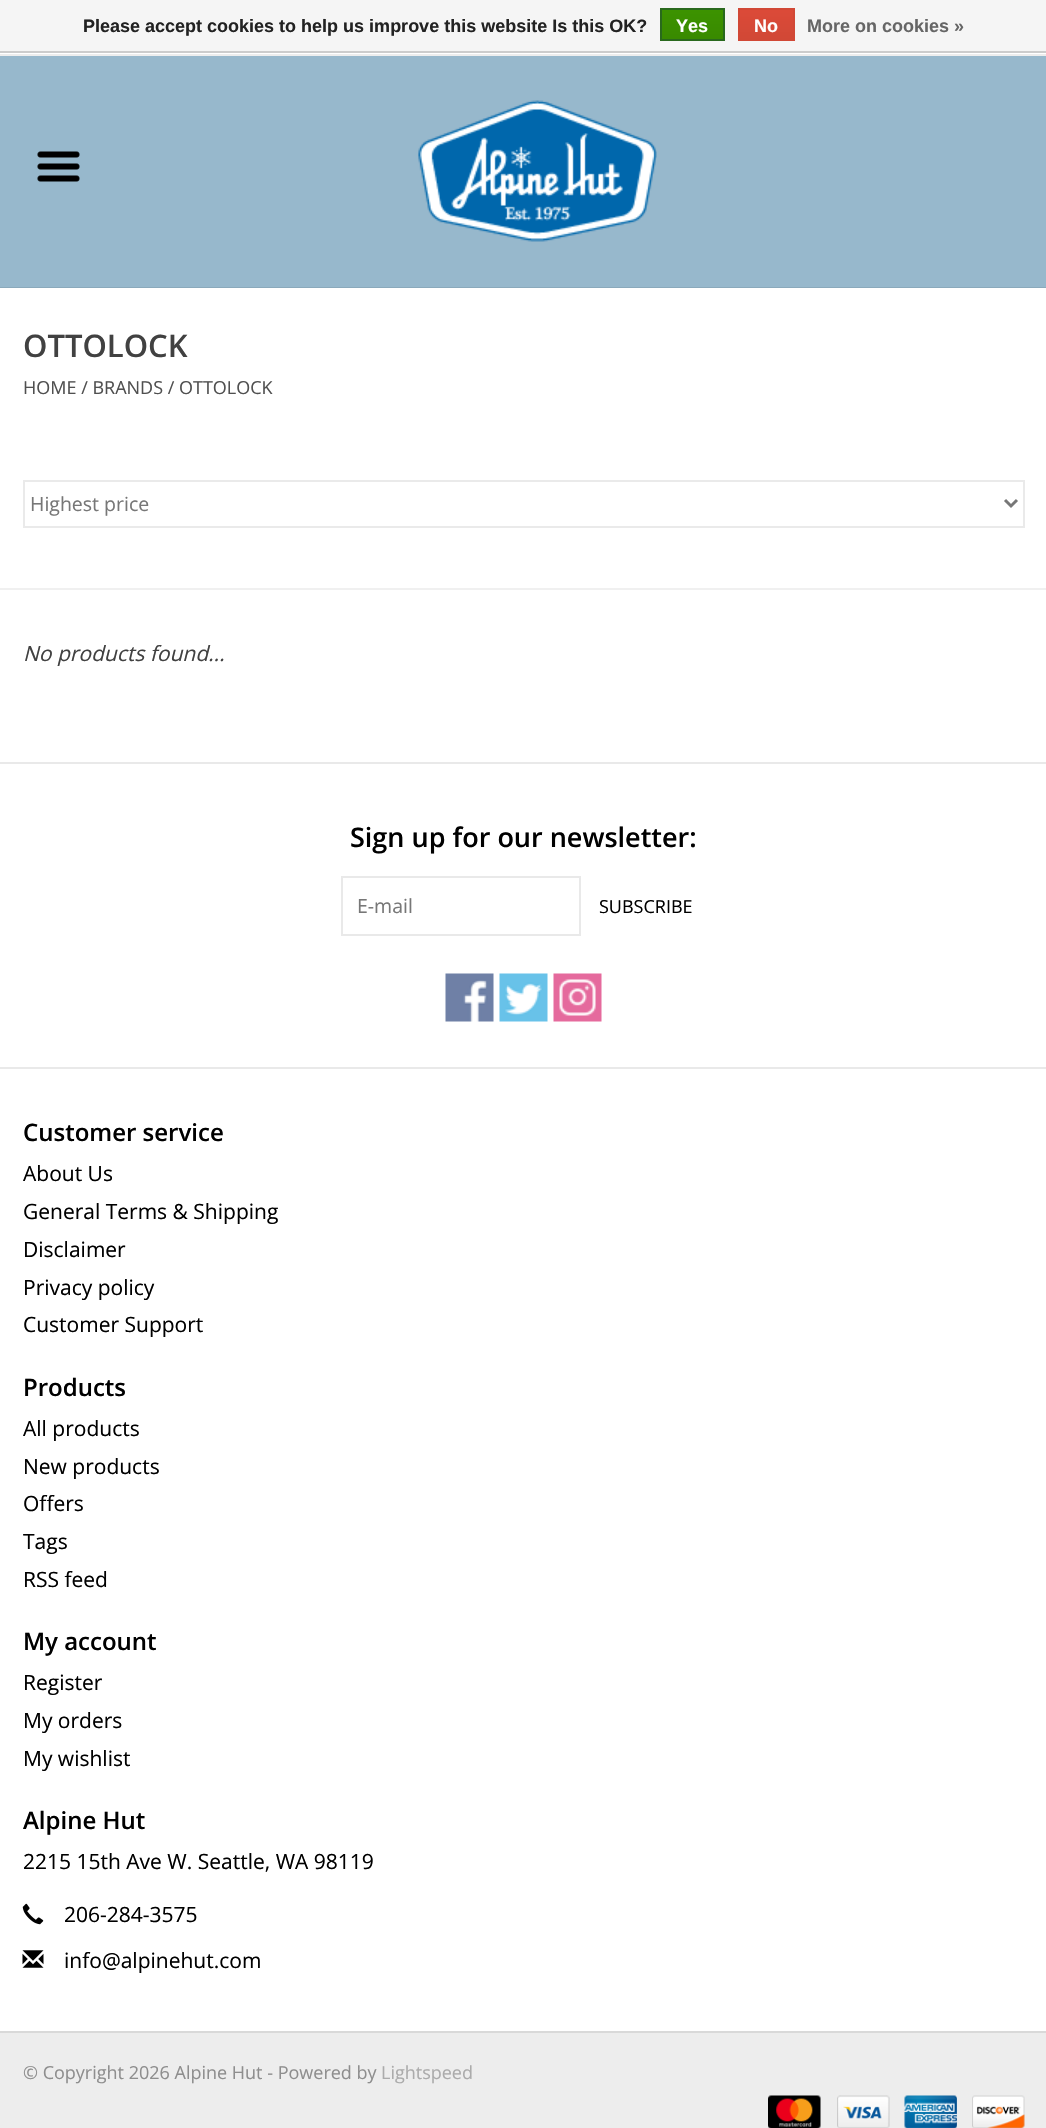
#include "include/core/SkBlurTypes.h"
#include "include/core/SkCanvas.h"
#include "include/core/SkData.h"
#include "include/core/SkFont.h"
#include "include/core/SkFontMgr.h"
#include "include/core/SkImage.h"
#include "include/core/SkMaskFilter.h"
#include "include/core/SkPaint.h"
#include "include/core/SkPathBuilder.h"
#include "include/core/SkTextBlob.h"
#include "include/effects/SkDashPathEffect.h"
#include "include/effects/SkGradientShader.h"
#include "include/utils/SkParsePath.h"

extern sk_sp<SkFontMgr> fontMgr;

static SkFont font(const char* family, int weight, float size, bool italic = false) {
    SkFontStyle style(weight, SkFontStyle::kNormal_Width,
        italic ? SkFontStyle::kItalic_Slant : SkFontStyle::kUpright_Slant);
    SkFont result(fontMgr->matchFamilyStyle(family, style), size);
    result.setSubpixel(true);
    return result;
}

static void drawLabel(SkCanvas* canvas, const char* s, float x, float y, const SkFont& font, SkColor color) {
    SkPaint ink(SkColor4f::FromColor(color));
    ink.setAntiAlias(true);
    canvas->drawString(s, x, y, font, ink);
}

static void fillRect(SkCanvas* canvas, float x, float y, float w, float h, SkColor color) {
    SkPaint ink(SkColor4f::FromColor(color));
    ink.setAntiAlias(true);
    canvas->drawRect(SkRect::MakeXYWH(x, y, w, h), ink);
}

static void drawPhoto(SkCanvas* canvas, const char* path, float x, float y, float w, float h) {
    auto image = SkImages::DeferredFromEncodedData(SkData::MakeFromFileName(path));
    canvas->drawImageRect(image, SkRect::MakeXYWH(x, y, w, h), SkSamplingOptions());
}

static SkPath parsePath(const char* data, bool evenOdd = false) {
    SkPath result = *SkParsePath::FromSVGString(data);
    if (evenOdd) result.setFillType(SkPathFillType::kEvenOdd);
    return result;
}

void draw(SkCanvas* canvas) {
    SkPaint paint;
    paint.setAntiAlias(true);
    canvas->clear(0xFF97B8CC);
    fillRect(canvas, 0, 0, 1046, 51, 0xFFF5F5F5);
    fillRect(canvas, 0, 51, 1046, 2, 0xFFCCCCCC);
    SkFont font1 = font("Liberation Sans", 700, 18);
    drawLabel(canvas, "Please accept cookies to help us improve this website Is this OK?", 83, 32, font1, 0xFF222222);
    {
        const SkColor colors[] = {0xFF3C9300, 0xFF398A00};
        const float stops[] = {0, 1};
        const SkPoint ends[] = {{692, 9}, {692, 39}};
        paint.setShader(SkGradientShader::MakeLinear(ends, colors, stops, 2, SkTileMode::kClamp));
        paint.setAlpha(255);
    }
    canvas->drawRect(SkRect::MakeXYWH(662, 10, 61, 29), paint);
    paint.setStroke(true);
    paint.setStrokeWidth(2);
    paint.setShader(nullptr);
    paint.setColor(0xFF29691D);
    canvas->drawRect(SkRect::MakeXYWH(661, 9, 63, 31), paint);
    drawLabel(canvas, "Yes", 676, 32, font1, 0xFFFFFFFF);
    paint.setStroke(false);
    {
        const SkColor colors[] = {0xFFDC4A38, 0xFFD14836};
        const float stops[] = {0, 1};
        const SkPoint ends[] = {{767, 9}, {767, 39}};
        paint.setShader(SkGradientShader::MakeLinear(ends, colors, stops, 2, SkTileMode::kClamp));
        paint.setAlpha(255);
    }
    canvas->drawRect(SkRect::MakeXYWH(740, 10, 53, 29), paint);
    paint.setStroke(true);
    paint.setShader(nullptr);
    paint.setColor(0xFFD14836);
    canvas->drawRect(SkRect::MakeXYWH(739, 9, 55, 31), paint);
    drawLabel(canvas, "No", 754, 32, font1, 0xFFFFFFFF);
    drawLabel(canvas, "More on cookies »", 807, 32, font1, 0xFF666666);
    fillRect(canvas, 0, 53, 1046, 1, 0xFFFFFFFF);
    fillRect(canvas, 0, 54, 1046, 2, 0xFFEDEDED);
    fillRect(canvas, 0, 287, 1046, 1, 0xFF8AA9BB);
    drawPhoto(canvas, "assets/img1.png", 418, 100, 239, 142);
    drawPhoto(canvas, "assets/img2.png", 37, 151, 43, 31);
    fillRect(canvas, 0, 288, 1046, 1743, 0xFFFFFFFF);
    SkFont font2 = font("Open Sans", 600, 31);
    drawLabel(canvas, "OTTOLOCK", 23, 357, font2, 0xFF414141);
    SkFont font3 = font("Open Sans", 400, 18);
    drawLabel(canvas, "HOME / BRANDS / OTTOLOCK", 23, 394, font3, 0xFF505050);
    fillRect(canvas, 0, 588, 1046, 2, 0xFFF0F0F0);
    paint.setColor(0xFFEAEAEA);
    canvas->drawRect(SkRect::MakeXYWH(24, 481, 1000, 46), paint);
    paint.setStrokeWidth(3);
    paint.setColor(0xFF777777);
    canvas->drawPath(parsePath("M1005 500L1011 506L1017 500"), paint);
    SkFont font4 = font("Open Sans", 400, 19.5f);
    drawLabel(canvas, "Highest price", 30, 511, font4, 0xFF777777);
    SkFont font5 = font("Open Sans", 400, 21, true);
    drawLabel(canvas, "No products found...", 23, 661, font5, 0xFF414141);
    fillRect(canvas, 0, 762, 1046, 2, 0xFFE9E9E9);
    SkFont font6 = font("Open Sans", 600, 27);
    drawLabel(canvas, "Sign up for our newsletter:", 350, 847, font6, 0xFF000000);
    paint.setStrokeWidth(2);
    paint.setColor(0xFFE9E9E9);
    canvas->drawRect(SkRect::MakeXYWH(342, 877, 238, 58), paint);
    drawLabel(canvas, "E-mail", 357, 913, font4, 0xFF777777);
    drawLabel(canvas, "SUBSCRIBE", 599, 913, font3, 0xFF000000);
    drawPhoto(canvas, "assets/img3.png", 445, 973, 49, 49);
    drawPhoto(canvas, "assets/img4.png", 499, 973, 49, 49);
    drawPhoto(canvas, "assets/img5.png", 553, 973, 49, 49);
    fillRect(canvas, 0, 1067, 1046, 2, 0xFFE9E9E9);
    SkFont font7 = font("Open Sans", 600, 24);
    drawLabel(canvas, "Customer service", 23, 1141, font7, 0xFF000000);
    SkFont font8 = font("Open Sans", 400, 21);
    drawLabel(canvas, "About Us", 23, 1181, font8, 0xFF000000);
    drawLabel(canvas, "General Terms & Shipping", 23, 1219, font8, 0xFF000000);
    drawLabel(canvas, "Disclaimer", 23, 1257, font8, 0xFF000000);
    drawLabel(canvas, "Privacy policy", 23, 1295, font8, 0xFF000000);
    drawLabel(canvas, "Customer Support", 23, 1332, font8, 0xFF000000);
    drawLabel(canvas, "Products", 23, 1396, font7, 0xFF000000);
    drawLabel(canvas, "All products", 23, 1436, font8, 0xFF000000);
    drawLabel(canvas, "New products", 23, 1474, font8, 0xFF000000);
    drawLabel(canvas, "Offers", 23, 1511, font8, 0xFF000000);
    drawLabel(canvas, "Tags", 23, 1549, font8, 0xFF000000);
    drawLabel(canvas, "RSS feed", 23, 1587, font8, 0xFF000000);
    drawLabel(canvas, "My account", 23, 1650, font7, 0xFF000000);
    drawLabel(canvas, "Register", 23, 1690, font8, 0xFF000000);
    drawLabel(canvas, "My orders", 23, 1728, font8, 0xFF000000);
    drawLabel(canvas, "My wishlist", 23, 1766, font8, 0xFF000000);
    drawLabel(canvas, "Alpine Hut", 23, 1829, font7, 0xFF000000);
    drawLabel(canvas, "2215 15th Ave W. Seattle, WA 98119", 23, 1869, font8, 0xFF000000);
    drawPhoto(canvas, "assets/img6.png", 22, 1903, 22, 22);
    drawLabel(canvas, "206-284-3575", 64, 1922, font8, 0xFF000000);
    drawPhoto(canvas, "assets/img7.png", 22, 1950, 22, 18);
    drawLabel(canvas, "info@alpinehut.com", 64, 1968, font8, 0xFF000000);
    fillRect(canvas, 0, 2031, 1046, 2, 0xFFD9D9D9);
    fillRect(canvas, 0, 2033, 1046, 95, 0xFFEDEDED);
    drawLabel(canvas, "© Copyright 2026 Alpine Hut - Powered by", 23, 2079, font3, 0xFF8E8E8E);
    drawLabel(canvas, "Lightspeed", 381, 2079, font3, 0xFFABABAB);
    drawPhoto(canvas, "assets/img8.png", 768, 2095, 53, 33);
    drawPhoto(canvas, "assets/img9.png", 837, 2095, 53, 33);
    drawPhoto(canvas, "assets/img10.png", 904, 2095, 53, 33);
    drawPhoto(canvas, "assets/img11.png", 972, 2095, 53, 33);
}
